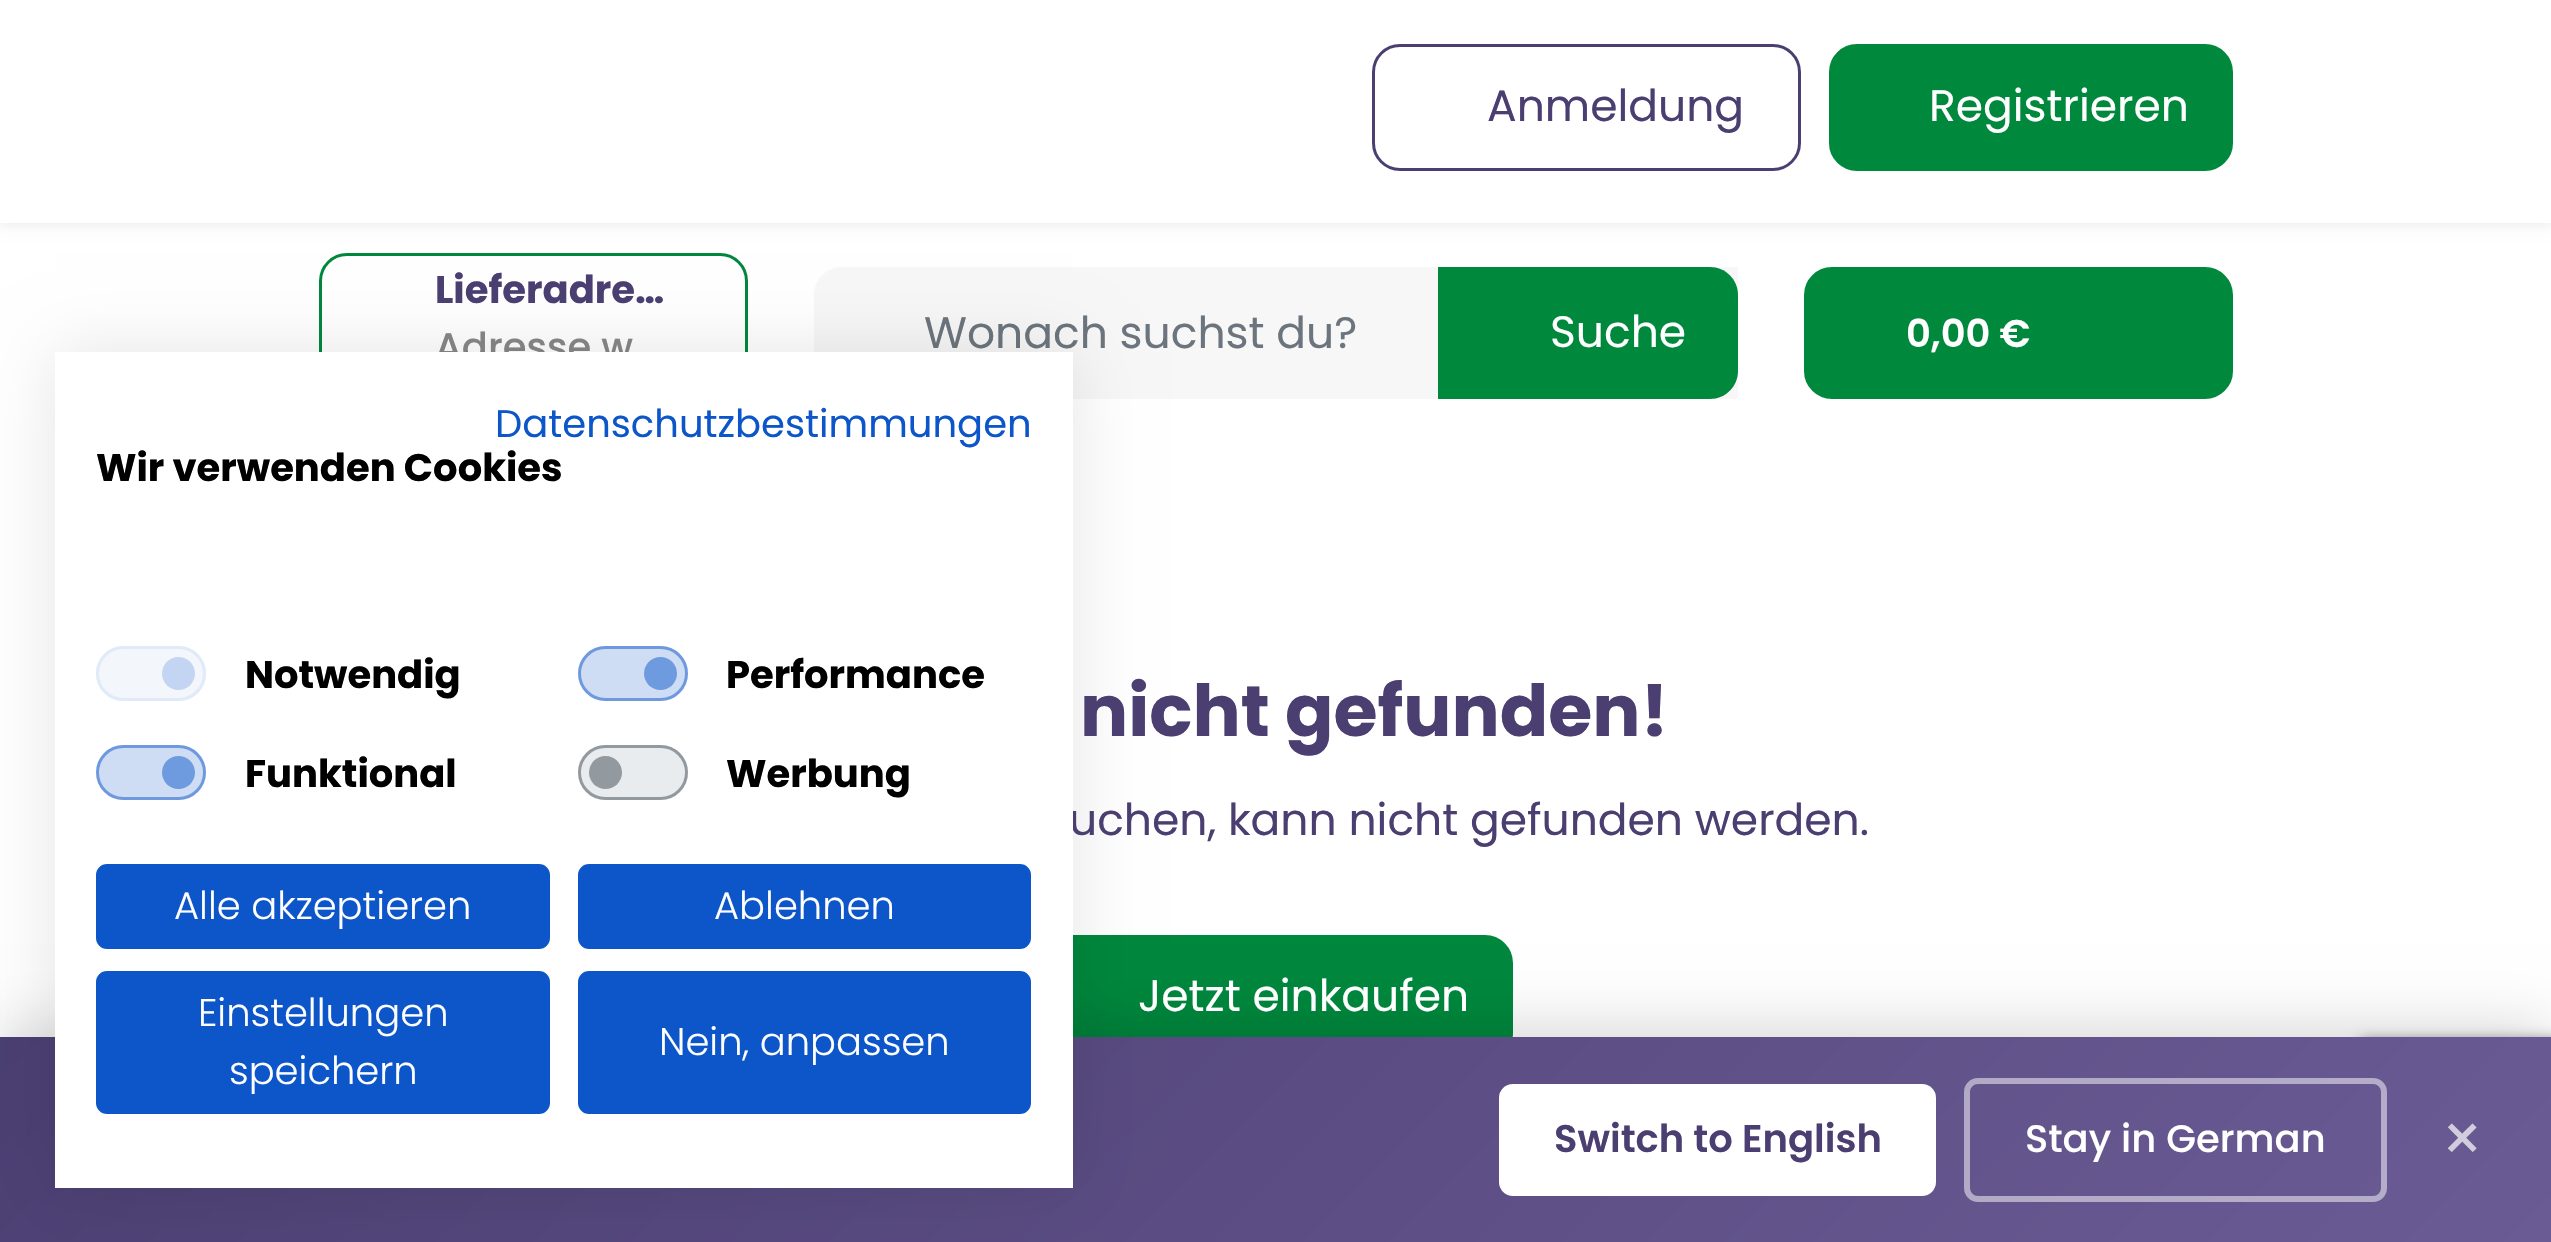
#include "include/core/SkBlurTypes.h"
#include "include/core/SkCanvas.h"
#include "include/core/SkData.h"
#include "include/core/SkFont.h"
#include "include/core/SkFontMgr.h"
#include "include/core/SkImage.h"
#include "include/core/SkMaskFilter.h"
#include "include/core/SkPaint.h"
#include "include/core/SkPathBuilder.h"
#include "include/core/SkTextBlob.h"
#include "include/effects/SkDashPathEffect.h"
#include "include/effects/SkGradientShader.h"
#include "include/utils/SkParsePath.h"

extern sk_sp<SkFontMgr> fontMgr;

static SkFont font(const char* family, int weight, float size, bool italic = false) {
    SkFontStyle style(weight, SkFontStyle::kNormal_Width,
        italic ? SkFontStyle::kItalic_Slant : SkFontStyle::kUpright_Slant);
    SkFont result(fontMgr->matchFamilyStyle(family, style), size);
    result.setSubpixel(true);
    return result;
}

static void drawLabel(SkCanvas* canvas, const char* s, float x, float y, const SkFont& font, SkColor color) {
    SkPaint ink(SkColor4f::FromColor(color));
    ink.setAntiAlias(true);
    canvas->drawString(s, x, y, font, ink);
}

static void fillRect(SkCanvas* canvas, float x, float y, float w, float h, SkColor color) {
    SkPaint ink(SkColor4f::FromColor(color));
    ink.setAntiAlias(true);
    canvas->drawRect(SkRect::MakeXYWH(x, y, w, h), ink);
}

static void fillRRect(SkCanvas* canvas, float x, float y, float w, float h, float radius, SkColor color) {
    SkPaint ink(SkColor4f::FromColor(color));
    ink.setAntiAlias(true);
    canvas->drawRoundRect(SkRect::MakeXYWH(x, y, w, h), radius, radius, ink);
}

static SkPath parsePath(const char* data, bool evenOdd = false) {
    SkPath result = *SkParsePath::FromSVGString(data);
    if (evenOdd) result.setFillType(SkPathFillType::kEvenOdd);
    return result;
}

void draw(SkCanvas* canvas) {
    SkPaint paint;
    paint.setAntiAlias(true);
    canvas->clear(0xFFFFFFFF);
    paint.setColor(0x1A000000);
    paint.setMaskFilter(SkMaskFilter::MakeBlur(kNormal_SkBlurStyle, 7));
    canvas->drawRect(SkRect::MakeXYWH(0, 0, 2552, 223), paint);
    paint.setMaskFilter(nullptr);
    fillRect(canvas, 0, 0, 2551, 223, 0xFFFFFFFF);
    paint.setStroke(true);
    paint.setStrokeWidth(3);
    paint.setColor(0xFF4B3F72);
    canvas->drawRoundRect(SkRect::MakeXYWH(1373.5f, 45.5f, 426, 124), 26.5f, 26.5f, paint);
    SkFont font1 = font("Poppins", 400, 44);
    drawLabel(canvas, "Anmeldung", 1487, 121, font1, 0xFF4B3F72);
    paint.setStroke(false);
    paint.setColor(0xFF00883D);
    canvas->drawRoundRect(SkRect::MakeXYWH(1830.5f, 45.5f, 401, 124), 26.5f, 26.5f, paint);
    paint.setStroke(true);
    canvas->drawRoundRect(SkRect::MakeXYWH(1830.5f, 45.5f, 401, 124), 26.5f, 26.5f, paint);
    drawLabel(canvas, "Registrieren", 1929, 121, font1, 0xFFFFFFFF);
    canvas->drawRoundRect(SkRect::MakeXYWH(320.5f, 254.5f, 426, 129), 26.5f, 26.5f, paint);
    SkFont font2 = font("Poppins", 700, 38.5f);
    drawLabel(canvas, "Lieferadre…", 435, 303, font2, 0xFF4B3F72);
    SkFont font3 = font("Poppins", 500, 38.5f);
    drawLabel(canvas, "Adresse w", 435, 360, font3, 0xFF878787);
    paint.setStroke(false);
    paint.setColor(0xFFF7F7F7);
    canvas->drawPath(parsePath("M842 267H1738V399H842C826.5 399 814 386.5 814 371V295C814 279.5 826.5 267 842 267Z"), paint);
    drawLabel(canvas, "Wonach suchst du?", 924, 348, font1, 0xFF6C757D);
    paint.setColor(0xFF00883D);
    canvas->drawPath(parsePath("M1438 267H1710C1725.5 267 1738 279.5 1738 295V371C1738 386.5 1725.5 399 1710 399H1438Z"), paint);
    drawLabel(canvas, "Suche", 1550, 347, font1, 0xFFFFFFFF);
    canvas->drawRoundRect(SkRect::MakeXYWH(1805.5f, 268.5f, 426, 129), 26.5f, 26.5f, paint);
    paint.setStroke(true);
    canvas->drawRoundRect(SkRect::MakeXYWH(1805.5f, 268.5f, 426, 129), 26.5f, 26.5f, paint);
    SkFont font4 = font("Poppins", 600, 38.5f);
    drawLabel(canvas, "0,00 €", 1906, 347, font4, 0xFFFFFFFF);
    paint.setStroke(false);
    canvas->drawRoundRect(SkRect::MakeXYWH(1041.5f, 936.5f, 470, 124), 26.5f, 26.5f, paint);
    paint.setStroke(true);
    canvas->drawRoundRect(SkRect::MakeXYWH(1041.5f, 936.5f, 470, 124), 26.5f, 26.5f, paint);
    paint.setStroke(false);
    paint.setColor(0xFF808080);
    paint.setMaskFilter(SkMaskFilter::MakeBlur(kNormal_SkBlurStyle, 7));
    canvas->drawRoundRect(SkRect::MakeXYWH(2360, 1040, 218, 165), 6, 6, paint);
    paint.setMaskFilter(nullptr);
    paint.setColor(0x26000000);
    paint.setMaskFilter(SkMaskFilter::MakeBlur(kNormal_SkBlurStyle, 27.5f));
    canvas->drawRect(SkRect::MakeXYWH(0, 1026, 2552, 206), paint);
    paint.setMaskFilter(nullptr);
    {
        const SkColor colors[] = {0xFF4B3F72, 0xFF6B5B95};
        const float stops[] = {0, 1};
        const SkPoint ends[] = {{586, 450}, {1966, 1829}};
        paint.setShader(SkGradientShader::MakeLinear(ends, colors, stops, 2, SkTileMode::kClamp));
        paint.setAlpha(255);
    }
    canvas->drawRect(SkRect::MakeXYWH(0, 1037, 2551, 205), paint);
    paint.setShader(nullptr);
    paint.setColor(0x1A000000);
    paint.setMaskFilter(SkMaskFilter::MakeBlur(kNormal_SkBlurStyle, 33));
    canvas->drawRect(SkRect::MakeXYWH(55, 352, 1018, 836), paint);
    paint.setMaskFilter(nullptr);
    drawLabel(canvas, "uchen, kann nicht gefunden werden.", 1069, 835, font1, 0xFF4B3F72);
    fillRect(canvas, 55, 352, 1018, 836, 0xFFFFFFFF);
    SkFont font5 = font("Poppins", 400, 38.5f);
    drawLabel(canvas, "Datenschutzbestimmungen", 495, 437, font5, 0xFF0D56C9);
    drawLabel(canvas, "Wir verwenden Cookies", 96, 481, font2, 0xFF000000);
    fillRRect(canvas, 96, 646, 110, 55, 27.5f, 0xFFF3F7FC);
    paint.setColor(0xFFC3D5F2);
    canvas->drawCircle(178.5f, 673.5f, 16.5f, paint);
    paint.setStroke(true);
    paint.setColor(0xFFE1EAF8);
    canvas->drawRoundRect(SkRect::MakeXYWH(97.5f, 647.5f, 107, 52), 26, 26, paint);
    drawLabel(canvas, "Notwendig", 245, 688, font2, 0xFF000000);
    fillRRect(canvas, 578, 646, 110, 55, 27.5f, 0xFFCFDDF4);
    paint.setStroke(false);
    paint.setColor(0xFF6E9ADF);
    canvas->drawCircle(660.5f, 673.5f, 16.5f, paint);
    paint.setStroke(true);
    paint.setColor(0x800D56C9);
    canvas->drawRoundRect(SkRect::MakeXYWH(579.5f, 647.5f, 107, 52), 26, 26, paint);
    drawLabel(canvas, "Performance", 726, 688, font2, 0xFF000000);
    fillRRect(canvas, 96, 745, 110, 55, 27.5f, 0xFFCFDDF4);
    paint.setStroke(false);
    paint.setColor(0xFF6E9ADF);
    canvas->drawCircle(178.5f, 772.5f, 16.5f, paint);
    paint.setStroke(true);
    paint.setColor(0x800D56C9);
    canvas->drawRoundRect(SkRect::MakeXYWH(97.5f, 746.5f, 107, 52), 26, 26, paint);
    drawLabel(canvas, "Funktional", 245, 787, font2, 0xFF000000);
    fillRRect(canvas, 578, 745, 110, 55, 27.5f, 0xFFE9ECEF);
    paint.setStroke(false);
    paint.setColor(0xFF92999F);
    canvas->drawCircle(605.5f, 772.5f, 16.5f, paint);
    paint.setStroke(true);
    paint.setColor(0xB36C757D);
    canvas->drawRoundRect(SkRect::MakeXYWH(579.5f, 746.5f, 107, 52), 26, 26, paint);
    drawLabel(canvas, "Werbung", 726, 787, font2, 0xFF000000);
    paint.setStroke(false);
    paint.setColor(0xFF0D56C9);
    canvas->drawRoundRect(SkRect::MakeXYWH(97.5f, 865.5f, 451, 82), 9.5f, 9.5f, paint);
    paint.setStroke(true);
    canvas->drawRoundRect(SkRect::MakeXYWH(97.5f, 865.5f, 451, 82), 9.5f, 9.5f, paint);
    SkFont font6 = font("Poppins", 300, 38.5f);
    drawLabel(canvas, "Alle akzeptieren", 174, 919, font6, 0xFFFFFFFF);
    paint.setStroke(false);
    canvas->drawRoundRect(SkRect::MakeXYWH(579.5f, 865.5f, 450, 82), 9.5f, 9.5f, paint);
    paint.setStroke(true);
    canvas->drawRoundRect(SkRect::MakeXYWH(579.5f, 865.5f, 450, 82), 9.5f, 9.5f, paint);
    drawLabel(canvas, "Ablehnen", 714, 919, font6, 0xFFFFFFFF);
    paint.setStroke(false);
    canvas->drawRoundRect(SkRect::MakeXYWH(97.5f, 972.5f, 451, 140), 9.5f, 9.5f, paint);
    paint.setStroke(true);
    canvas->drawRoundRect(SkRect::MakeXYWH(97.5f, 972.5f, 451, 140), 9.5f, 9.5f, paint);
    drawLabel(canvas, "Einstellungen", 198, 1026, font6, 0xFFFFFFFF);
    drawLabel(canvas, "speichern", 229, 1084, font6, 0xFFFFFFFF);
    paint.setStroke(false);
    canvas->drawRoundRect(SkRect::MakeXYWH(579.5f, 972.5f, 450, 140), 9.5f, 9.5f, paint);
    paint.setStroke(true);
    canvas->drawRoundRect(SkRect::MakeXYWH(579.5f, 972.5f, 450, 140), 9.5f, 9.5f, paint);
    drawLabel(canvas, "Nein, anpassen", 659, 1055, font6, 0xFFFFFFFF);
    SkFont font7 = font("Poppins", 700, 71.5f);
    drawLabel(canvas, "nicht gefunden!", 1080, 736, font7, 0xFF4B3F72);
    drawLabel(canvas, "Jetzt einkaufen", 1138, 1011, font1, 0xFFFFFFFF);
    fillRRect(canvas, 1499, 1084, 437, 112, 14, 0xFFFFFFFF);
    drawLabel(canvas, "Switch to English", 1554, 1152, font4, 0xFF4B3F72);
    paint.setStrokeWidth(6);
    paint.setColor(0x80FFFFFF);
    canvas->drawRoundRect(SkRect::MakeXYWH(1967, 1081, 417, 118), 11, 11, paint);
    drawLabel(canvas, "Stay in German", 2025, 1152, font3, 0xFFFFFFFF);
    SkFont font8 = font("Poppins", 400, 66);
    drawLabel(canvas, "×", 2441, 1162, font8, 0xFFD2CDDE);
}
